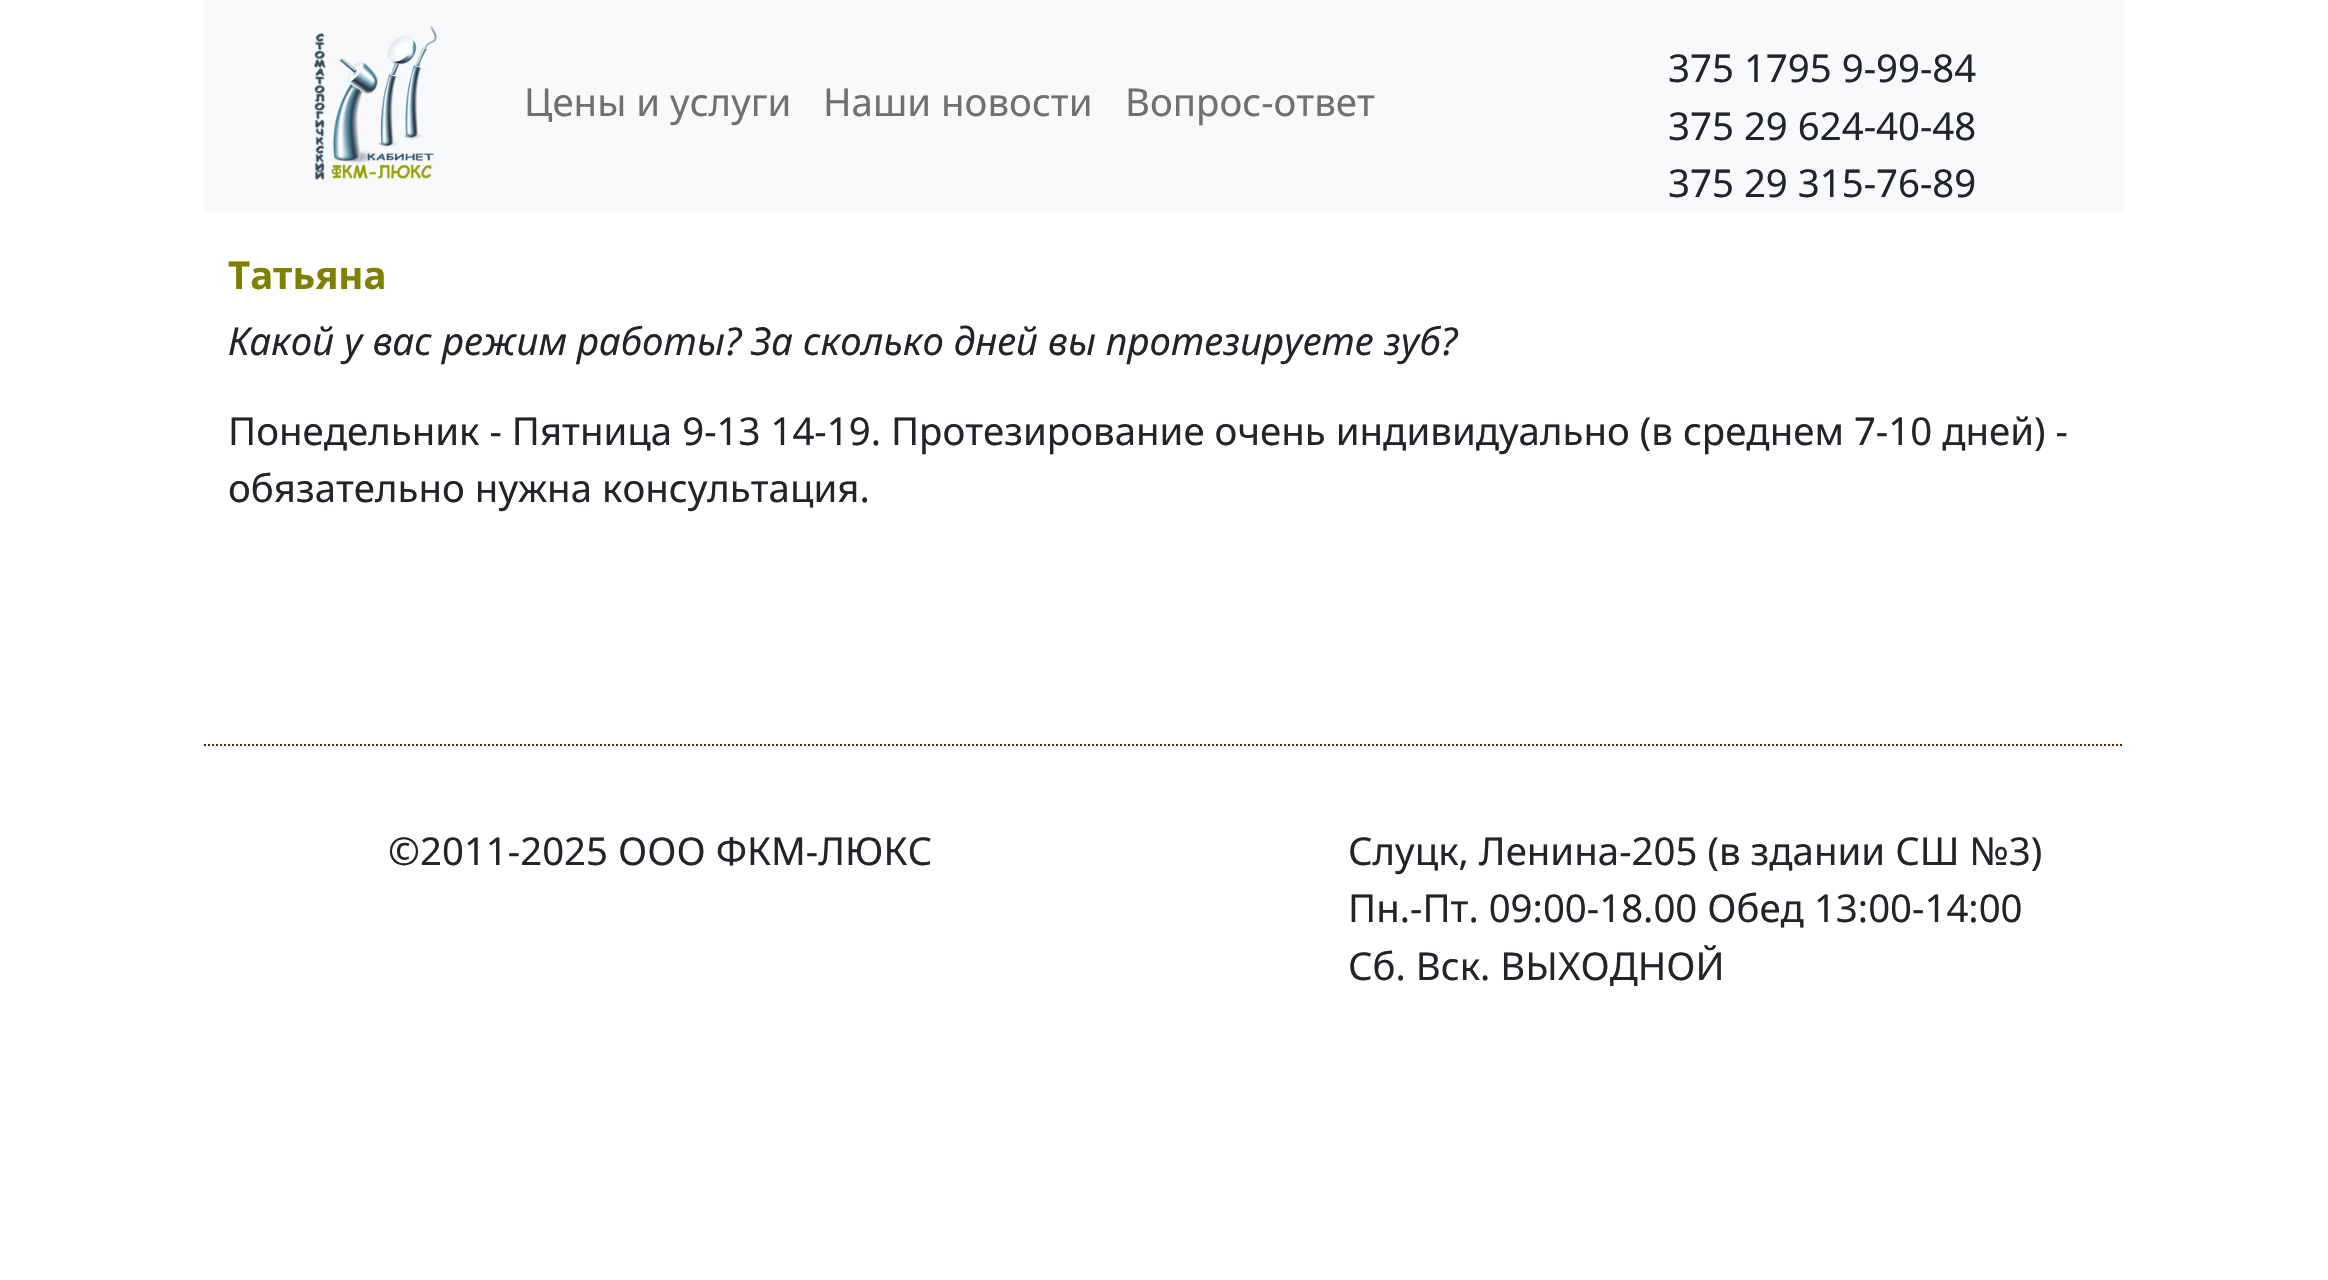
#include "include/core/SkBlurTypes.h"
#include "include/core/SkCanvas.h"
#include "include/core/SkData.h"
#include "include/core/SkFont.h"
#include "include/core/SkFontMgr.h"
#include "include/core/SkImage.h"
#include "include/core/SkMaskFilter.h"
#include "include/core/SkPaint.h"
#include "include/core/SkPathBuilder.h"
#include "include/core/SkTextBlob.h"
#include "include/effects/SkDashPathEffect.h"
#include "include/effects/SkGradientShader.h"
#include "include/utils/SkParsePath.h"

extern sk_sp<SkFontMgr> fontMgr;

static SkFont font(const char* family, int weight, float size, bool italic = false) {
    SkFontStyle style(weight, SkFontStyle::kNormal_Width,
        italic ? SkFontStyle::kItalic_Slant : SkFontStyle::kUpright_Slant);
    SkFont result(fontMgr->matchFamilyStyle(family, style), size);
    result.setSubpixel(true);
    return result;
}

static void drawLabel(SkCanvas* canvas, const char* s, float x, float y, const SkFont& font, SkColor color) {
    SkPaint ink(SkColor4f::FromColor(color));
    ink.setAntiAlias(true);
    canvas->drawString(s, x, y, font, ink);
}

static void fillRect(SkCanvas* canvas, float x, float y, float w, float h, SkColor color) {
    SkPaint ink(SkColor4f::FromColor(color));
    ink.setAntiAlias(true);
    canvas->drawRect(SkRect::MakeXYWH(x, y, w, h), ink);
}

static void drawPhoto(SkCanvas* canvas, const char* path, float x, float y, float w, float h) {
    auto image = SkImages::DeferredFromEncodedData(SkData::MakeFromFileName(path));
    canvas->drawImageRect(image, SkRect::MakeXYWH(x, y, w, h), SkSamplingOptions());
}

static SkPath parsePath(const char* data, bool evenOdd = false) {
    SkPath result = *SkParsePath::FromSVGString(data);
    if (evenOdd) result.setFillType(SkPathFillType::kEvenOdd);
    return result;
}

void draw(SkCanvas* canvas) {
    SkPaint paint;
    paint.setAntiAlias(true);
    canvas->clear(0xFFFFFFFF);
    fillRect(canvas, 204, 0, 1920, 212, 0xFFF8F9FA);
    drawPhoto(canvas, "assets/img1.png", 314, 26, 124, 154);
    SkFont font1 = font("Noto Sans", 400, 38.4f);
    drawLabel(canvas, "Цены и услуги", 524, 116, font1, 0xFF707071);
    drawLabel(canvas, "Наши новости", 823, 116, font1, 0xFF707071);
    drawLabel(canvas, "Вопрос-ответ", 1125, 116, font1, 0xFF707071);
    drawLabel(canvas, "375 1795 9-99-84", 1668, 82, font1, 0xFF212529);
    drawLabel(canvas, "375 29 624-40-48", 1668, 140, font1, 0xFF212529);
    drawLabel(canvas, "375 29 315-76-89", 1668, 197, font1, 0xFF212529);
    SkFont font2 = font("Noto Sans", 700, 38.4f);
    drawLabel(canvas, "Татьяна", 228, 289, font2, 0xFF808000);
    SkFont font3 = font("Noto Sans", 400, 38.4f, true);
    drawLabel(canvas, "Какой у вас режим работы? За сколько дней вы протезируете зуб?", 228, 355, font3, 0xFF212529);
    drawLabel(canvas, "Понедельник - Пятница 9-13 14-19. Протезирование очень индивидуально (в среднем 7-10 дней) -", 228, 445, font1, 0xFF212529);
    drawLabel(canvas, "обязательно нужна консультация.", 228, 502, font1, 0xFF212529);
    paint.setStroke(true);
    paint.setStrokeWidth(2);
    paint.setColor(0xFF532503);
    paint.setPathEffect(SkDashPathEffect::Make({{2, 2}}, 0));
    canvas->drawPath(parsePath("M204 745H2124"), paint);
    paint.setPathEffect(nullptr);
    drawLabel(canvas, "©2011-2025 ООО ФКМ-ЛЮКС", 388, 865, font1, 0xFF212529);
    drawLabel(canvas, "Слуцк, Ленина-205 (в здании СШ №3)", 1348, 865, font1, 0xFF212529);
    drawLabel(canvas, "Пн.-Пт. 09:00-18.00 Обед 13:00-14:00", 1348, 922, font1, 0xFF212529);
    drawLabel(canvas, "Сб. Вск. ВЫХОДНОЙ", 1348, 980, font1, 0xFF212529);
}
